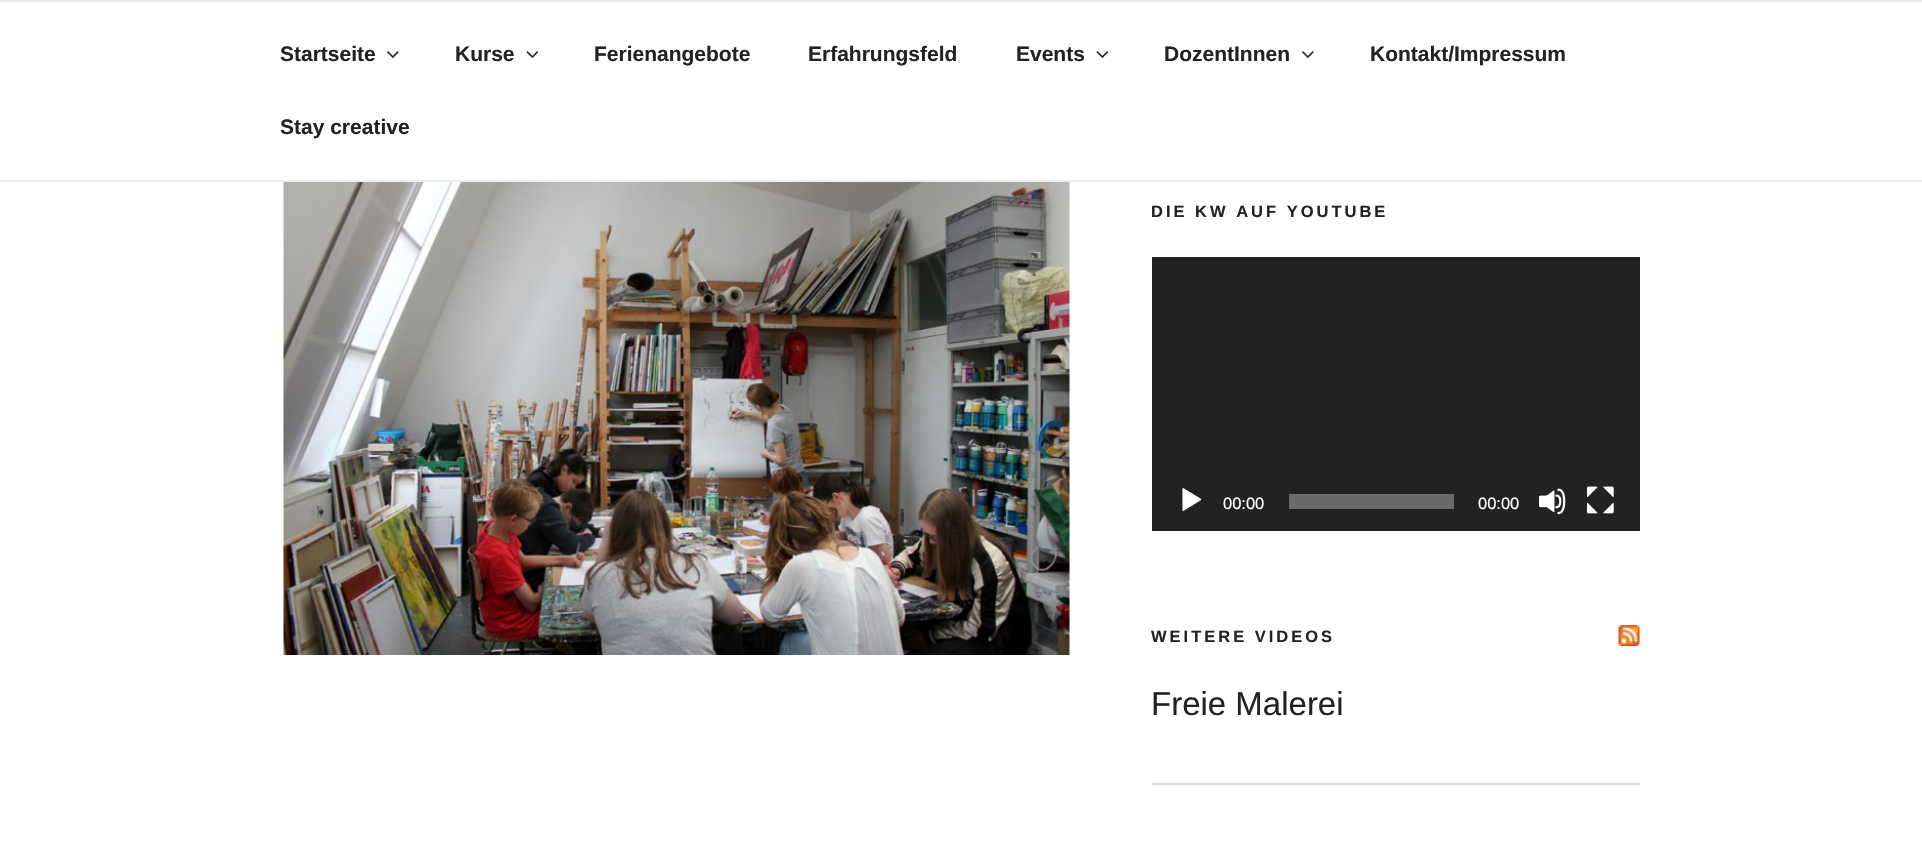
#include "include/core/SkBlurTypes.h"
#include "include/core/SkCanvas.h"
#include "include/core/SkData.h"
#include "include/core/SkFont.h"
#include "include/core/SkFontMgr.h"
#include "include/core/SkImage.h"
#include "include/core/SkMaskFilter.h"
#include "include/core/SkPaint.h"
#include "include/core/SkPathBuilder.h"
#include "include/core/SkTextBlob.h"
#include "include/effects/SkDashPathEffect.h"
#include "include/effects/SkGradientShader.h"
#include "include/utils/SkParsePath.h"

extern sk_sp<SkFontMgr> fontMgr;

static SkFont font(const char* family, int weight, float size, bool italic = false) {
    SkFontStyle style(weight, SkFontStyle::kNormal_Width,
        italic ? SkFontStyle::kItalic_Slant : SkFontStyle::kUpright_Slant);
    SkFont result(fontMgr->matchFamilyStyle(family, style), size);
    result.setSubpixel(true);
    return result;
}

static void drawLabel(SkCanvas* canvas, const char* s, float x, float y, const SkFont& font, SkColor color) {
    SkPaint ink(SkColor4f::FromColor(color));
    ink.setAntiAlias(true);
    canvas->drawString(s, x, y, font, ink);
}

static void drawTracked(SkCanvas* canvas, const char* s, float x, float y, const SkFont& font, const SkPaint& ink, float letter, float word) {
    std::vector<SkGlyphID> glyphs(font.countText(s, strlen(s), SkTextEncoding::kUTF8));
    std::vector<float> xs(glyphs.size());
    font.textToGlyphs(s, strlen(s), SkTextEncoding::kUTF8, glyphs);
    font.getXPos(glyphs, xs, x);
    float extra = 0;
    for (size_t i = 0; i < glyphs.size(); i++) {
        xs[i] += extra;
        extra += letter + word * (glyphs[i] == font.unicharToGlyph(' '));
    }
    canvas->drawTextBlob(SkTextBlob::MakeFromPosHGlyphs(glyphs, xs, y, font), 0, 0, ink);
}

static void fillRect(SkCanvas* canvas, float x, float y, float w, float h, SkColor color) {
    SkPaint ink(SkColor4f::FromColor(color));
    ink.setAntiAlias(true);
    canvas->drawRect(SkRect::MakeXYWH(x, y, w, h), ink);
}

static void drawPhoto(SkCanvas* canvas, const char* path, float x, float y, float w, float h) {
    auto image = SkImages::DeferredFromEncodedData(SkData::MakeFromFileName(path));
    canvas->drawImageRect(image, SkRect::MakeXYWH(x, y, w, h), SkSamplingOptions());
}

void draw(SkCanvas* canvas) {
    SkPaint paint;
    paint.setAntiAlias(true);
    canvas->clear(0xFFFFFFFF);
    fillRect(canvas, 0, 0, 1922, 2, 0xFFEEEEEE);
    fillRect(canvas, 0, 180, 1922, 2, 0xFFEEEEEE);
    SkFont font1 = font("Liberation Sans", 700, 21);
    drawLabel(canvas, "Startseite", 280, 61, font1, 0xFF222222);
    drawPhoto(canvas, "assets/img1.png", 387, 51, 12, 7);
    drawLabel(canvas, "Kurse", 455, 61, font1, 0xFF222222);
    drawPhoto(canvas, "assets/img2.png", 526, 51, 13, 7);
    drawLabel(canvas, "Ferienangebote", 594, 61, font1, 0xFF222222);
    drawLabel(canvas, "Erfahrungsfeld", 808, 61, font1, 0xFF222222);
    drawLabel(canvas, "Events", 1016, 61, font1, 0xFF222222);
    drawPhoto(canvas, "assets/img2.png", 1096, 51, 13, 7);
    drawLabel(canvas, "DozentInnen", 1164, 61, font1, 0xFF222222);
    drawPhoto(canvas, "assets/img1.png", 1302, 51, 12, 7);
    drawLabel(canvas, "Kontakt/Impressum", 1370, 61, font1, 0xFF222222);
    drawLabel(canvas, "Stay creative", 280, 134, font1, 0xFF222222);
    drawPhoto(canvas, "assets/img3.png", 283, 182, 787, 473);
    SkFont font2 = font("Liberation Sans", 700, 16.5f);
    paint.setColor(0xFF222222);
    drawTracked(canvas, "DIE KW AUF YOUTUBE", 1151, 217, font2, paint, 3, 0);
    fillRect(canvas, 1152, 257, 488, 274, 0xFF222222);
    drawPhoto(canvas, "assets/img4.png", 1182, 488, 20, 23);
    SkFont font3 = font("Liberation Sans", 400, 16.5f);
    drawLabel(canvas, "00:00", 1223, 509, font3, 0xFFFFFFFF);
    fillRect(canvas, 1289, 494, 165, 15, 0xFF6B6B6B);
    drawLabel(canvas, "00:00", 1478, 509, font3, 0xFFFFFFFF);
    drawPhoto(canvas, "assets/img5.png", 1539, 488, 27, 27);
    drawPhoto(canvas, "assets/img6.png", 1587, 486, 27, 28);
    drawTracked(canvas, "WEITERE VIDEOS", 1151, 642, font2, paint, 3, 0);
    drawPhoto(canvas, "assets/img7.png", 1618, 625, 22, 21);
    fillRect(canvas, 1152, 783, 488, 2, 0xFFDDDDDD);
    SkFont font4 = font("Liberation Sans", 400, 33);
    drawLabel(canvas, "Freie Malerei", 1151, 715, font4, 0xFF222222);
}
